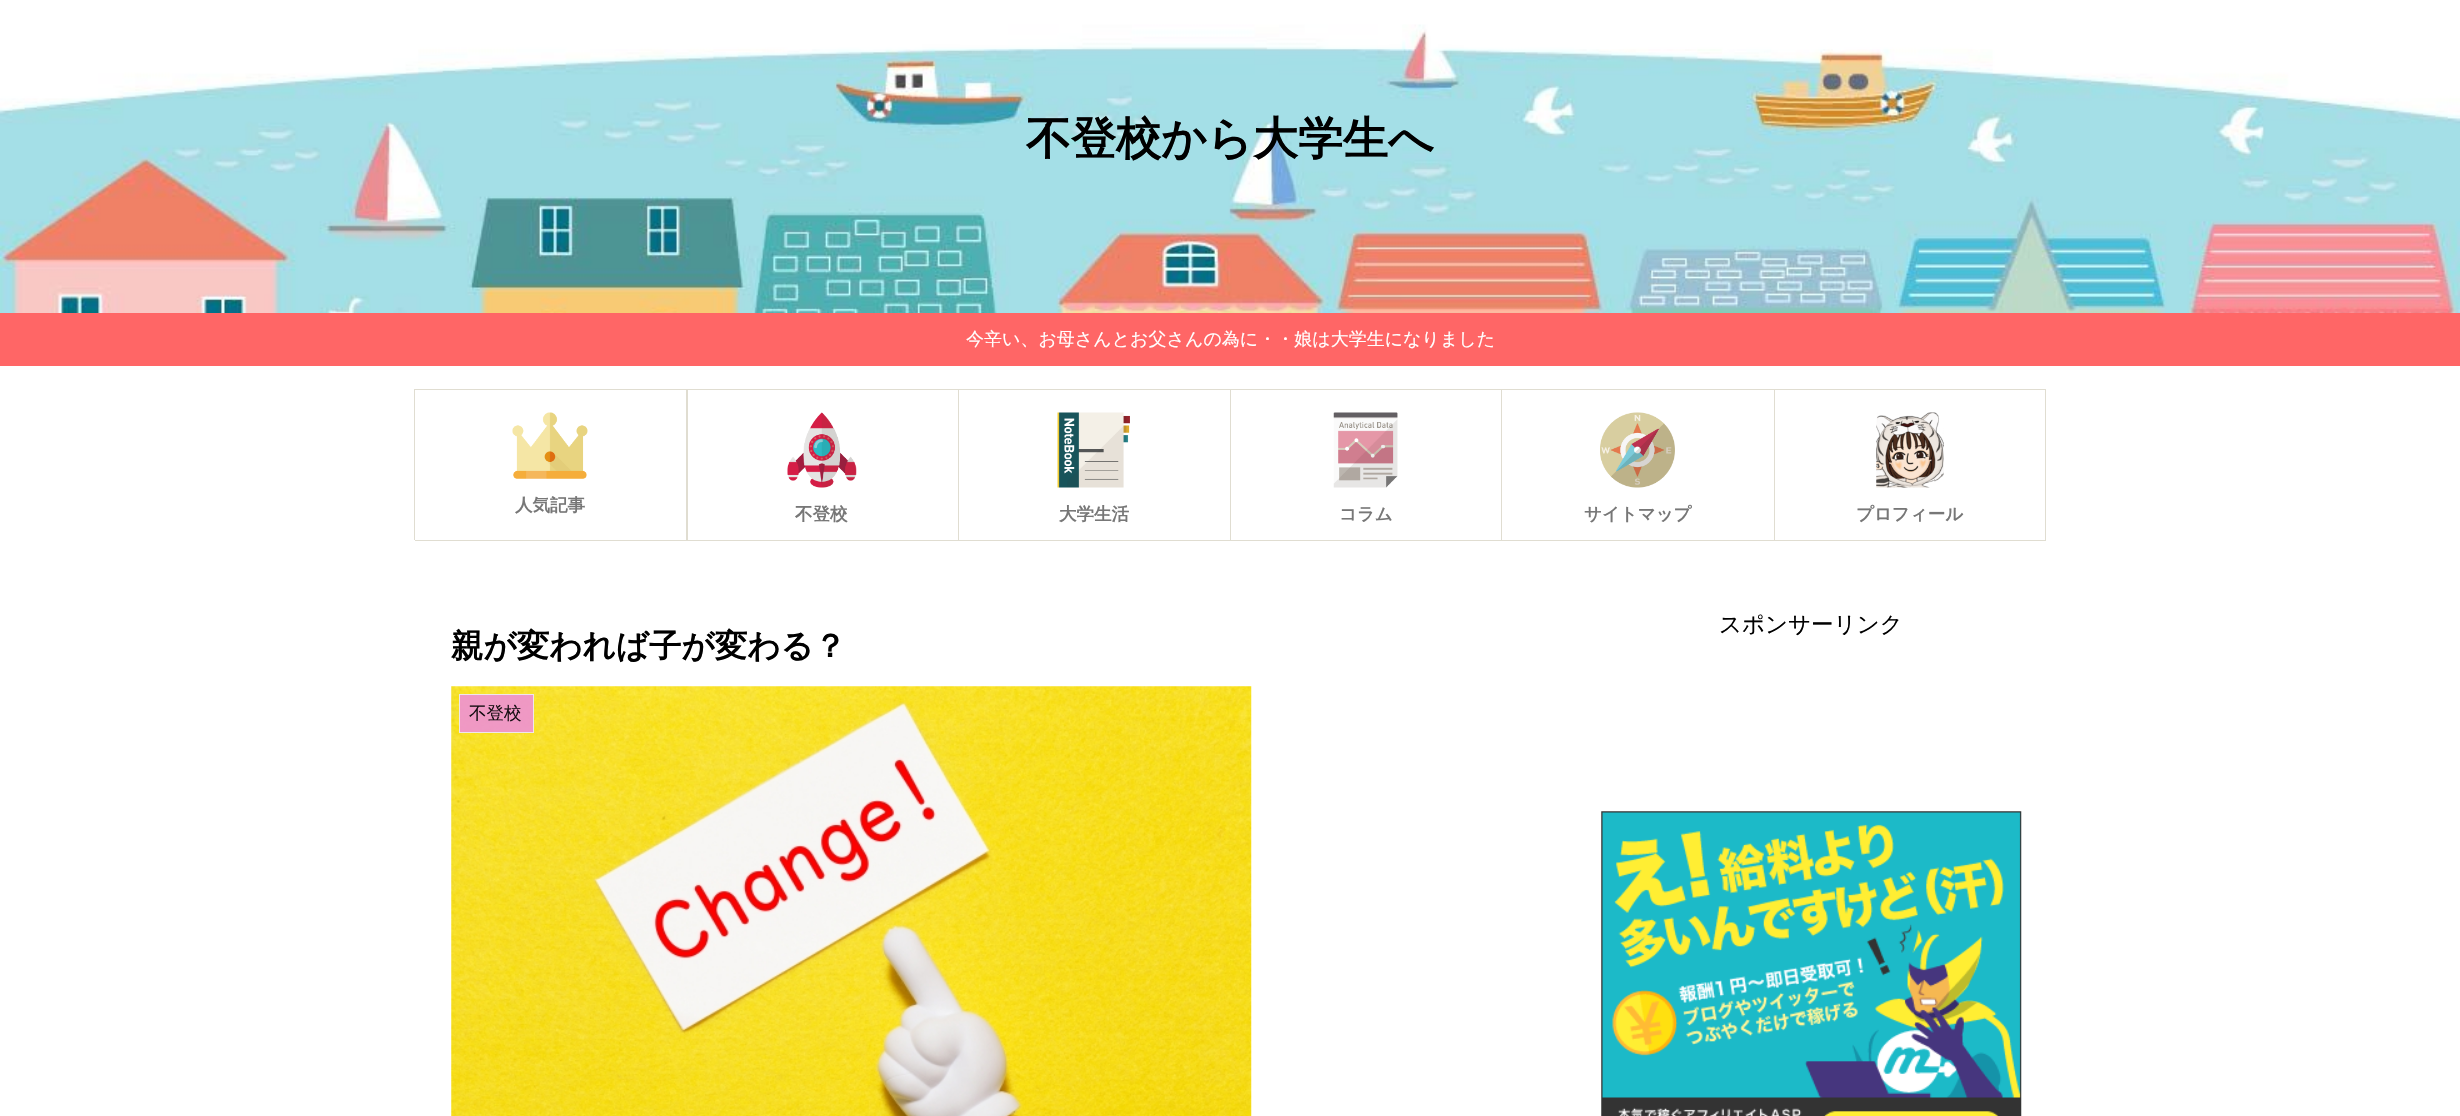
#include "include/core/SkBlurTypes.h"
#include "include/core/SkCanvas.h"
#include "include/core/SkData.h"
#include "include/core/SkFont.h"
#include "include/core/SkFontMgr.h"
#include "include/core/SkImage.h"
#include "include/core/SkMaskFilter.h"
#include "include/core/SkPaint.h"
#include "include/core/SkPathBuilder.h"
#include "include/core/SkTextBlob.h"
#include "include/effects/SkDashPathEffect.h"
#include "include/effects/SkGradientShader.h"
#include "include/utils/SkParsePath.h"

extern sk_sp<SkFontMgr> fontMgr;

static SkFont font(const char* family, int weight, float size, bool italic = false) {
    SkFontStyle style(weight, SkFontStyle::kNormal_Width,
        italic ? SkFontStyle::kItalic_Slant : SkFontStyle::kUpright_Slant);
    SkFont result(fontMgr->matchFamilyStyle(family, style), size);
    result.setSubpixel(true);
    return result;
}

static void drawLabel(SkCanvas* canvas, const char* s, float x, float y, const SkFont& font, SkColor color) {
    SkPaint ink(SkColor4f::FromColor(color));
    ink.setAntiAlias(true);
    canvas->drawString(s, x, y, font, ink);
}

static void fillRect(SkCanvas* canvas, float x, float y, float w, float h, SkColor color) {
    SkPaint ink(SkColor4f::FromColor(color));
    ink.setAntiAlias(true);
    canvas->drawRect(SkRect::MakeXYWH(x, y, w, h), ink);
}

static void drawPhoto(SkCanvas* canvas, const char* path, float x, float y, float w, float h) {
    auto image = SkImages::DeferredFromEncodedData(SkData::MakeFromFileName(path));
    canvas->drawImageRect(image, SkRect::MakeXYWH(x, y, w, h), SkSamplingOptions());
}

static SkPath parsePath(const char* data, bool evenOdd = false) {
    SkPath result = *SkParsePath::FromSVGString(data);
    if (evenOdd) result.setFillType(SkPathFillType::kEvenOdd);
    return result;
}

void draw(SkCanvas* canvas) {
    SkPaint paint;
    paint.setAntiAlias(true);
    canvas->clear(0xFFFFFFFF);
    drawPhoto(canvas, "assets/img1.png", 0, 24, 2460, 289);
    SkFont font1 = font("WenQuanYi Zen Hei", 700, 45);
    drawLabel(canvas, "不登校から大学生へ", 1026, 154, font1, 0xFF000000);
    fillRect(canvas, 0, 313, 2460, 53, 0xFFFF6666);
    SkFont font2 = font("WenQuanYi Zen Hei", 500, 18);
    drawLabel(canvas, "今辛い、お母さんとお父さんの為に・・娘は大学生になりました", 966, 345, font2, 0xFFFFFFFF);
    paint.setColor(0xFFE0DDD1);
    canvas->drawPath(parsePath("M415 540V541H688V390H686V540Z"), paint);
    canvas->save();
    canvas->clipRect(SkRect::MakeXYWH(414, 389, 272, 151));
    canvas->drawPath(parsePath("M290 265H810V664H290ZM415 390H688V541H415Z", true), paint);
    canvas->restore();
    drawPhoto(canvas, "assets/img2.png", 512, 412, 76, 67);
    SkFont font3 = font("WenQuanYi Zen Hei", 700, 17.5f);
    drawLabel(canvas, "人気記事", 515, 511, font3, 0xFF777777);
    canvas->drawPath(parsePath("M688 540V541H959V390H958V540Z"), paint);
    canvas->save();
    canvas->clipRect(SkRect::MakeXYWH(686, 389, 272, 151));
    canvas->drawPath(parsePath("M562 265H1081V664H562ZM688 390H959V541H688Z", true), paint);
    canvas->restore();
    drawPhoto(canvas, "assets/img3.png", 787, 412, 70, 76);
    drawLabel(canvas, "不登校", 795, 520, font3, 0xFF777777);
    canvas->drawPath(parsePath("M959 540V541H1231V390H1230V540Z"), paint);
    canvas->save();
    canvas->clipRect(SkRect::MakeXYWH(958, 389, 272, 151));
    canvas->drawPath(parsePath("M834 265H1354V664H834ZM959 390H1231V541H959Z", true), paint);
    canvas->restore();
    drawPhoto(canvas, "assets/img4.png", 1057, 412, 73, 76);
    drawLabel(canvas, "大学生活", 1059, 520, font3, 0xFF777777);
    canvas->drawPath(parsePath("M1231 540V541H1503V390H1501V540Z"), paint);
    canvas->save();
    canvas->clipRect(SkRect::MakeXYWH(1230, 389, 271, 151));
    canvas->drawPath(parsePath("M1106 265H1625V664H1106ZM1231 390H1502V541H1231Z", true), paint);
    canvas->restore();
    drawPhoto(canvas, "assets/img5.png", 1333, 412, 65, 76);
    drawLabel(canvas, "コラム", 1339, 520, font3, 0xFF777777);
    canvas->drawPath(parsePath("M1503 540V541H1775V390H1774V540Z"), paint);
    fillRect(canvas, 1502, 390, 1, 150, 0xFFFFFFFF);
    canvas->save();
    canvas->clipRect(SkRect::MakeXYWH(1501, 389, 273, 151));
    canvas->drawPath(parsePath("M1378 265H1898V664H1378ZM1502 390H1775V541H1502Z", true), paint);
    canvas->restore();
    drawPhoto(canvas, "assets/img6.png", 1600, 412, 75, 76);
    drawLabel(canvas, "サイトマップ", 1584, 520, font3, 0xFF777777);
    fillRect(canvas, 2045, 389, 1, 1, 0xFFE0DDD1);
    canvas->drawPath(parsePath("M1775 540V541H2046V390H2045V540Z"), paint);
    canvas->save();
    canvas->clipRect(SkRect::MakeXYWH(1774, 389, 271, 151));
    canvas->drawPath(parsePath("M1650 265H2169V664H1650ZM1775 390H2046V541H1775Z", true), paint);
    canvas->restore();
    drawPhoto(canvas, "assets/img7.png", 1876, 412, 68, 76);
    drawLabel(canvas, "プロフィール", 1856, 520, font3, 0xFF777777);
    SkFont font4 = font("WenQuanYi Zen Hei", 500, 22.5f);
    drawLabel(canvas, "スポンサーリンク", 1719, 632, font4, 0xFF000000);
    drawPhoto(canvas, "assets/img8.png", 1601, 811, 421, 305);
    SkFont font5 = font("WenQuanYi Zen Hei", 700, 32.5f);
    drawLabel(canvas, "親が変われば子が変わる？", 451, 657, font5, 0xFF000000);
    drawPhoto(canvas, "assets/img9.png", 451, 686, 801, 430);
    fillRect(canvas, 459, 694, 75, 39, 0xE6ED90D4);
    paint.setStroke(true);
    paint.setStrokeWidth(1);
    paint.setColor(0xE6EEEEEE);
    canvas->drawRect(SkRect::MakeXYWH(459.5f, 694.5f, 74, 38), paint);
    SkFont font6 = font("WenQuanYi Zen Hei", 500, 17.5f);
    drawLabel(canvas, "不登校", 469, 719, font6, 0xFF180F14);
}
